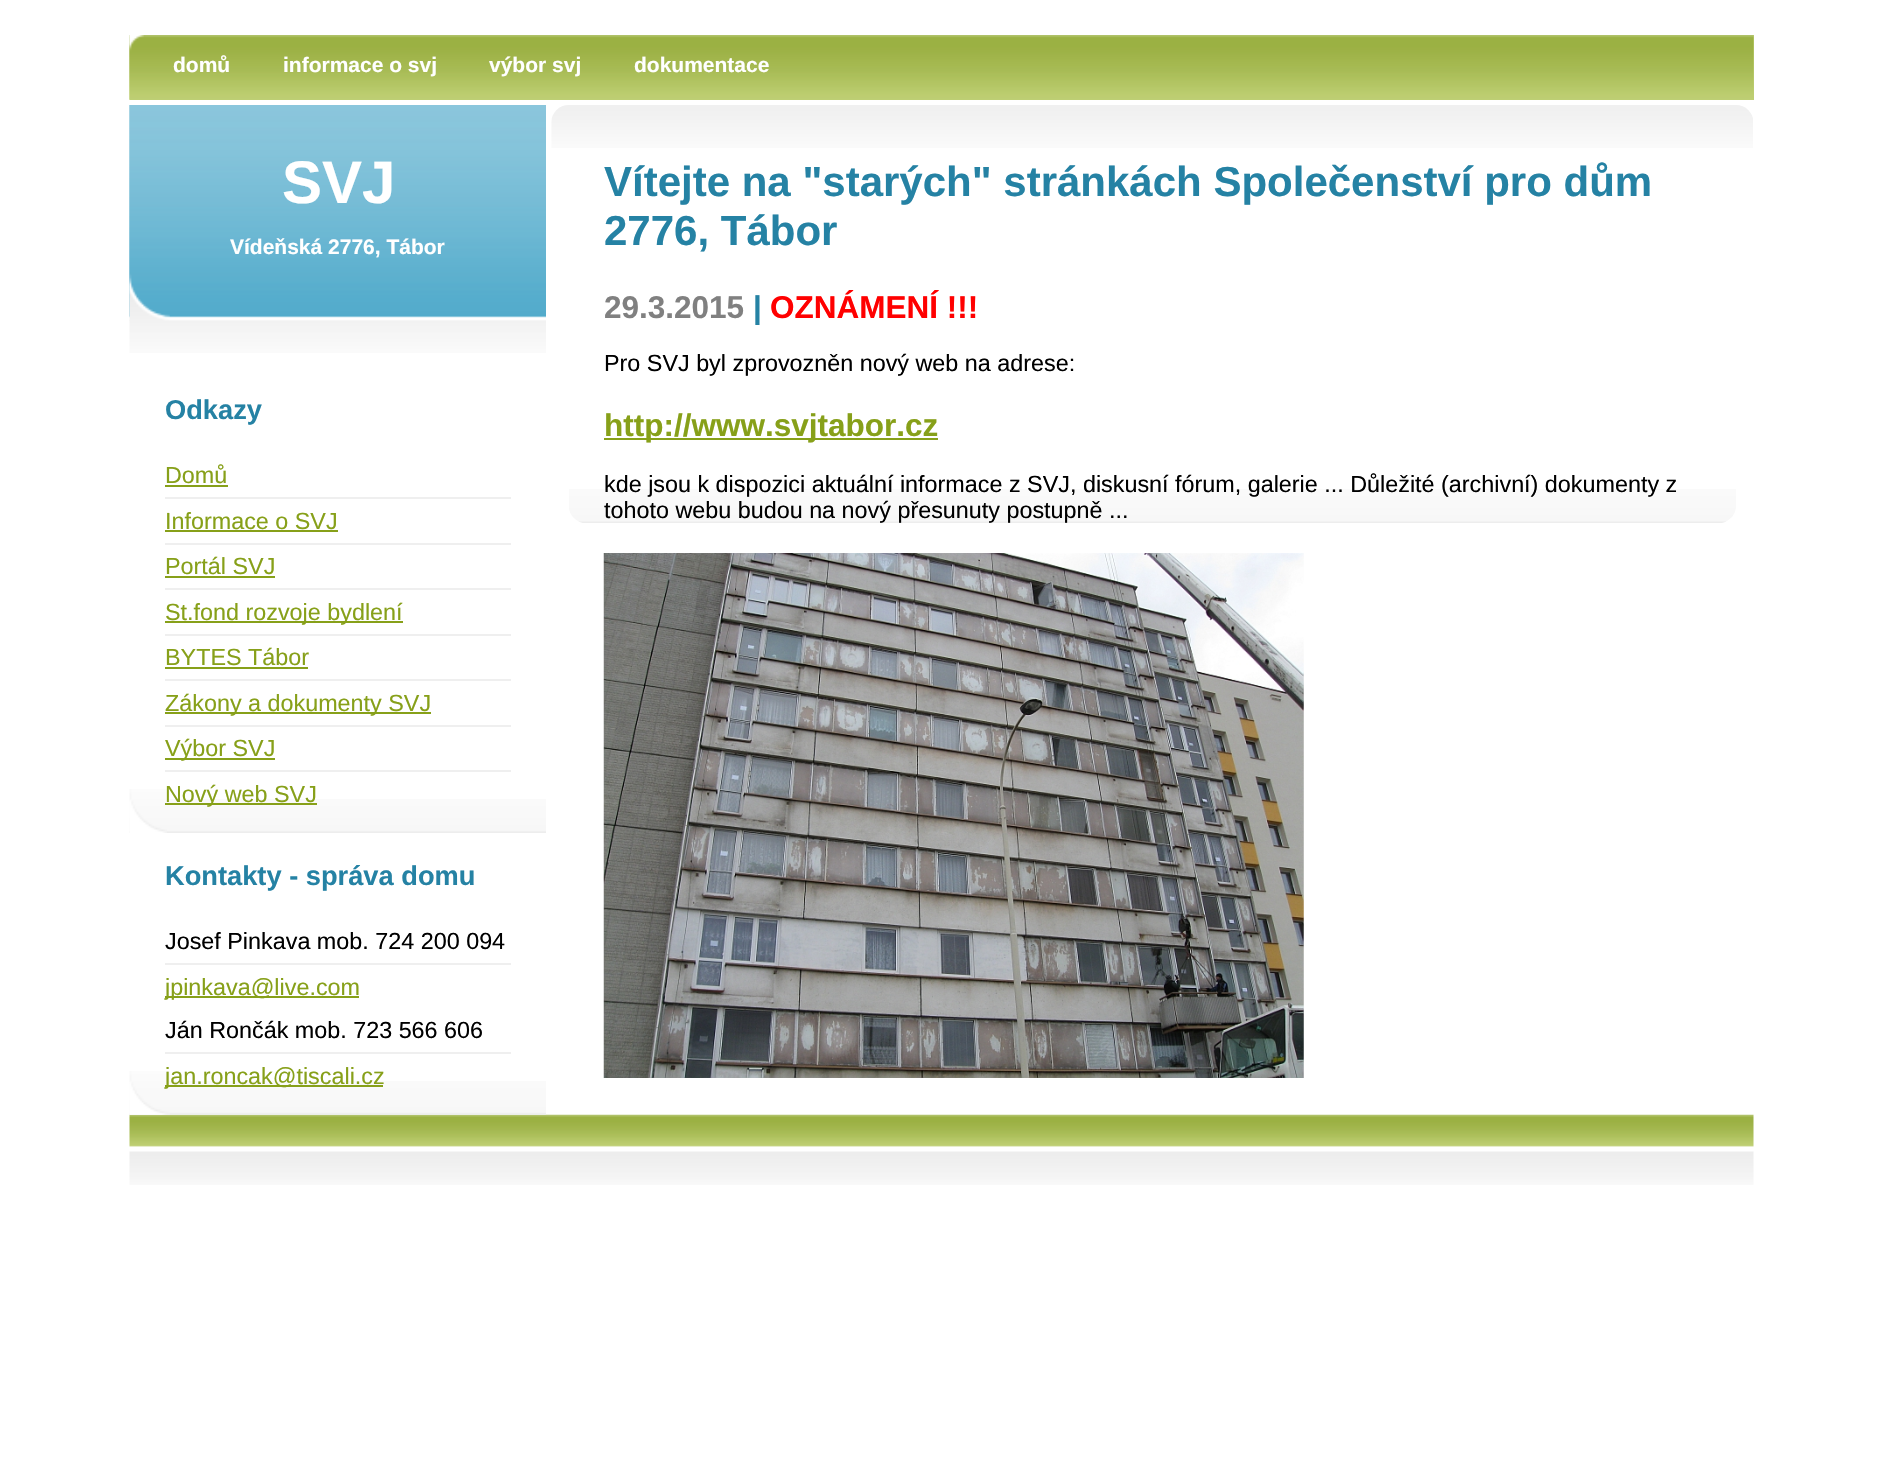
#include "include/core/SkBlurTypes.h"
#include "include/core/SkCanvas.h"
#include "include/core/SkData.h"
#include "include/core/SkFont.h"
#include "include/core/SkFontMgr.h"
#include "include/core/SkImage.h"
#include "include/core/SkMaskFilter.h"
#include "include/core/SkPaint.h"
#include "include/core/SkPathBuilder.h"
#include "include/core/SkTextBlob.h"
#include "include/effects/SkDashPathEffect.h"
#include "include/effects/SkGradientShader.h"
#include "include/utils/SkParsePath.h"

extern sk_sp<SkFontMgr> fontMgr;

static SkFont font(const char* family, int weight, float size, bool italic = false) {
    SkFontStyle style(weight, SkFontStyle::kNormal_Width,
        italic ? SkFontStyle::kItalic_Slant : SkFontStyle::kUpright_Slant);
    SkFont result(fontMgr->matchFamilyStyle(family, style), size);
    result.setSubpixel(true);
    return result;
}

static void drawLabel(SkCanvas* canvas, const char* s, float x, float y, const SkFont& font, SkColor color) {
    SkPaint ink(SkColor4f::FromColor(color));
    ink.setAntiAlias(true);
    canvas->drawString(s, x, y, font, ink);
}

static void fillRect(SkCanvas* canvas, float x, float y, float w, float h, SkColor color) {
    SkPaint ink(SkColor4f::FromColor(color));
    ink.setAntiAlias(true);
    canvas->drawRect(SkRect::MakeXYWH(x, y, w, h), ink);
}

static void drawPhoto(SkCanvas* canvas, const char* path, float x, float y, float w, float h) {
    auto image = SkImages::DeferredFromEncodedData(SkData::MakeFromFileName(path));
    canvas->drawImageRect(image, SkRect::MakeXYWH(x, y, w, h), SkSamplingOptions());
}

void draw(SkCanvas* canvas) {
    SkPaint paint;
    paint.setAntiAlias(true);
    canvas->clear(0xFFFFFFFF);
    fillRect(canvas, 130, 35, 1624, 65, 0xFFBECF74);
    drawPhoto(canvas, "assets/img1.png", 129, 35, 1625, 65);
    drawPhoto(canvas, "assets/img2.png", 129, 35, 15, 65);
    SkFont font1 = font("Liberation Sans", 700, 21);
    drawLabel(canvas, "domů", 173, 72, font1, 0xFFFFFFFF);
    drawLabel(canvas, "informace o svj", 283, 72, font1, 0xFFFFFFFF);
    drawLabel(canvas, "výbor svj", 489, 72, font1, 0xFFFFFFFF);
    drawLabel(canvas, "dokumentace", 634, 72, font1, 0xFFFFFFFF);
    drawPhoto(canvas, "assets/img3.png", 129, 105, 417, 248);
    drawPhoto(canvas, "assets/img4.png", 129, 105, 41, 216);
    SkFont font2 = font("Liberation Sans", 700, 60);
    drawLabel(canvas, "SVJ", 282, 203, font2, 0xFFFFFFFF);
    drawLabel(canvas, "Vídeňská 2776, Tábor", 230, 254, font1, 0xFFFFFFFF);
    drawPhoto(canvas, "assets/img5.png", 129, 799, 417, 34);
    SkFont font3 = font("Liberation Sans", 700, 27.25f);
    drawLabel(canvas, "Odkazy", 165, 419, font3, 0xFF2582A4);
    drawPhoto(canvas, "assets/img6.png", 129, 789, 38, 44);
    SkFont font4 = font("Liberation Sans", 400, 23.35f);
    drawLabel(canvas, "Domů", 165, 483, font4, 0xFF87A019);
    fillRect(canvas, 165, 485, 63, 2, 0xFF87A019);
    fillRect(canvas, 165, 497, 346, 2, 0xFFEFEFEF);
    drawLabel(canvas, "Informace o SVJ", 165, 529, font4, 0xFF87A019);
    fillRect(canvas, 165, 530, 173, 2, 0xFF87A019);
    fillRect(canvas, 165, 543, 346, 2, 0xFFEFEFEF);
    drawLabel(canvas, "Portál SVJ", 165, 574, font4, 0xFF87A019);
    fillRect(canvas, 165, 576, 110, 2, 0xFF87A019);
    fillRect(canvas, 165, 588, 346, 2, 0xFFEFEFEF);
    fillRect(canvas, 165, 621, 238, 2, 0xFF87A019);
    drawLabel(canvas, "St.fond rozvoje bydlení", 165, 620, font4, 0xFF87A019);
    fillRect(canvas, 165, 634, 346, 2, 0xFFEFEFEF);
    drawLabel(canvas, "BYTES Tábor", 165, 665, font4, 0xFF87A019);
    fillRect(canvas, 165, 667, 143, 2, 0xFF87A019);
    fillRect(canvas, 165, 679, 346, 2, 0xFFEFEFEF);
    fillRect(canvas, 165, 712, 266, 2, 0xFF87A019);
    drawLabel(canvas, "Zákony a dokumenty SVJ", 165, 711, font4, 0xFF87A019);
    fillRect(canvas, 165, 725, 346, 2, 0xFFEFEFEF);
    fillRect(canvas, 165, 758, 110, 2, 0xFF87A019);
    drawLabel(canvas, "Výbor SVJ", 165, 756, font4, 0xFF87A019);
    fillRect(canvas, 165, 770, 346, 2, 0xFFEFEFEF);
    fillRect(canvas, 165, 803, 152, 2, 0xFF87A019);
    drawLabel(canvas, "Nový web SVJ", 165, 802, font4, 0xFF87A019);
    drawPhoto(canvas, "assets/img12.png", 129, 1114, 1625, 71);
    drawPhoto(canvas, "assets/img7.png", 129, 1081, 417, 34);
    drawLabel(canvas, "Kontakty - správa domu", 165, 885, font3, 0xFF2582A4);
    drawPhoto(canvas, "assets/img8.png", 129, 1071, 41, 44);
    drawLabel(canvas, "Josef Pinkava mob. 724 200 094", 165, 949, font4, 0xFF000000);
    fillRect(canvas, 165, 963, 346, 2, 0xFFEFEFEF);
    fillRect(canvas, 165, 996, 194, 2, 0xFF87A019);
    drawLabel(canvas, "jpinkava@live.com", 165, 995, font4, 0xFF87A019);
    drawLabel(canvas, "Ján Rončák mob. 723 566 606", 165, 1038, font4, 0xFF000000);
    fillRect(canvas, 165, 1052, 346, 2, 0xFFEFEFEF);
    fillRect(canvas, 165, 1085, 218, 2, 0xFF87A019);
    drawLabel(canvas, "jan.roncak@tiscali.cz", 165, 1084, font4, 0xFF87A019);
    drawPhoto(canvas, "assets/img9.png", 551, 105, 1202, 43);
    SkFont font5 = font("Liberation Sans", 700, 42);
    drawLabel(canvas, "Vítejte na \"starých\" stránkách Společenství pro dům", 604, 196, font5, 0xFF2582A4);
    drawLabel(canvas, "2776, Tábor", 604, 245, font5, 0xFF2582A4);
    drawPhoto(canvas, "assets/img10.png", 569, 489, 1167, 34);
    SkFont font6 = font("Liberation Sans", 700, 31.5f);
    drawLabel(canvas, "29.3.2015", 604, 318, font6, 0xFF808080);
    drawLabel(canvas, "|", 753, 318, font6, 0xFF2582A4);
    drawLabel(canvas, "OZNÁMENÍ !!!", 770, 318, font6, 0xFFFF0000);
    drawLabel(canvas, "Pro SVJ byl zprovozněn nový web na adrese:", 604, 371, font4, 0xFF000000);
    fillRect(canvas, 604, 438, 334, 2, 0xFF87A019);
    drawLabel(canvas, "http://www.svjtabor.cz", 604, 436, font6, 0xFF87A019);
    drawLabel(canvas, "kde jsou k dispozici aktuální informace z SVJ, diskusní fórum, galerie ... Důležité (archivní) dokumenty z", 604, 492, font4, 0xFF000000);
    drawLabel(canvas, "tohoto webu budou na nový přesunuty postupně ...", 604, 518, font4, 0xFF000000);
    drawPhoto(canvas, "assets/img11.png", 603, 553, 701, 525);
}
